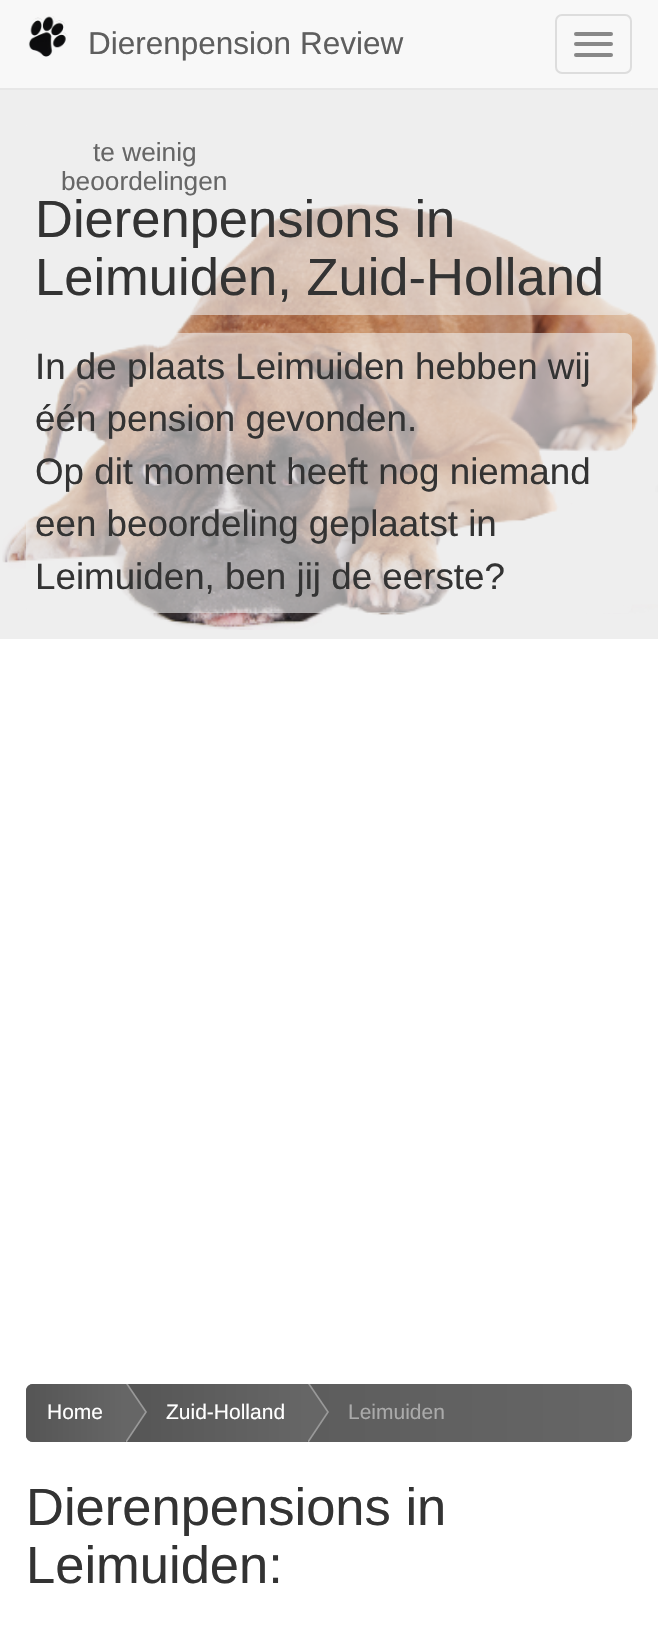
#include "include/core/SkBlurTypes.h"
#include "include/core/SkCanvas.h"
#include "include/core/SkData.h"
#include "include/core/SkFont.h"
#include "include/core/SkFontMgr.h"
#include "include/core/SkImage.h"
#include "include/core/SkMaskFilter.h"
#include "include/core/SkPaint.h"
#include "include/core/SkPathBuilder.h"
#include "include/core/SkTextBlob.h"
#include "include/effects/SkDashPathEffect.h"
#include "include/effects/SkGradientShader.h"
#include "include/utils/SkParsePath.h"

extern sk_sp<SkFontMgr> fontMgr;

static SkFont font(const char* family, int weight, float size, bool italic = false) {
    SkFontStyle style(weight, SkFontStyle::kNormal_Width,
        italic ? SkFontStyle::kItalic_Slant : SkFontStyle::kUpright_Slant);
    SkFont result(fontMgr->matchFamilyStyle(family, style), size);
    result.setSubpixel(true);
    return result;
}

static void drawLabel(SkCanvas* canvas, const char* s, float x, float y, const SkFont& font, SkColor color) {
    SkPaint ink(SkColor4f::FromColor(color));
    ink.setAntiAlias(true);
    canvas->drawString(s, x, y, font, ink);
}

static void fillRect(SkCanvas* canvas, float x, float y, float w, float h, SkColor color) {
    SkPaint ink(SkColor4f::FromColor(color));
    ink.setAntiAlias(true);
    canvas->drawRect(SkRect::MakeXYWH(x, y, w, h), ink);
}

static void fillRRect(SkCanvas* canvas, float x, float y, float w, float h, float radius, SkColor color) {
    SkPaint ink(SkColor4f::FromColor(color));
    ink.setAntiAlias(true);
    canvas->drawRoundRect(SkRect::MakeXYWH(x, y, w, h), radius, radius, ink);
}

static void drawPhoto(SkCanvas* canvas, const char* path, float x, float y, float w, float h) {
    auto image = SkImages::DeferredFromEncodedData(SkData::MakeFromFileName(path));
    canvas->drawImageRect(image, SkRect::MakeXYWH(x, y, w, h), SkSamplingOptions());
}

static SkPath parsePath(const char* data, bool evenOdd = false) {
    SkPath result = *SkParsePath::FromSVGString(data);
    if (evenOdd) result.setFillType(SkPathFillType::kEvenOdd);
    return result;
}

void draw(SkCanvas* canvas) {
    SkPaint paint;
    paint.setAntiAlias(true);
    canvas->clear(0xFFFFFFFF);
    fillRect(canvas, 0, 0, 658, 88, 0xFFF8F8F8);
    fillRect(canvas, 0, 88, 658, 2, 0xFFE7E7E7);
    drawPhoto(canvas, "assets/img1.png", 28, 16, 40, 41);
    SkFont font1 = font("Liberation Sans", 400, 31.5f);
    drawLabel(canvas, "Dierenpension Review", 88, 54, font1, 0xFF5E5E5E);
    paint.setStroke(true);
    paint.setStrokeWidth(2);
    paint.setColor(0xFFDDDDDD);
    canvas->drawRoundRect(SkRect::MakeXYWH(556, 15, 75, 58), 6, 6, paint);
    fillRRect(canvas, 574, 32, 39, 4, 2, 0xFF888888);
    fillRRect(canvas, 574, 42, 39, 4, 2, 0xFF888888);
    fillRRect(canvas, 574, 53, 39, 4, 2, 0xFF888888);
    fillRect(canvas, 0, 90, 658, 549, 0xFFEEEEEE);
    drawPhoto(canvas, "assets/img2.png", 2, 203, 656, 427);
    fillRRect(canvas, 26, 119, 606, 196, 7, 0x99EEEEEE);
    SkFont font2 = font("Liberation Sans", 400, 26.25f);
    drawLabel(canvas, "te weinig", 93, 161, font2, 0xFF666666);
    drawLabel(canvas, "beoordelingen", 61, 190, font2, 0xFF666666);
    SkFont font3 = font("Liberation Sans", 400, 52.5f);
    drawLabel(canvas, "Dierenpensions in", 35, 237, font3, 0xFF333333);
    drawLabel(canvas, "Leimuiden, Zuid-Holland", 35, 295, font3, 0xFF333333);
    fillRRect(canvas, 26, 333, 606, 280, 7, 0x99EEEEEE);
    SkFont font4 = font("Liberation Sans", 400, 36.75f);
    drawLabel(canvas, "In de plaats Leimuiden hebben wij", 35, 379, font4, 0xFF333333);
    drawLabel(canvas, "één pension gevonden.", 35, 431, font4, 0xFF333333);
    drawLabel(canvas, "Op dit moment heeft nog niemand", 35, 484, font4, 0xFF333333);
    drawLabel(canvas, "een beoordeling geplaatst in", 35, 536, font4, 0xFF333333);
    drawLabel(canvas, "Leimuiden, ben jij de eerste?", 35, 589, font4, 0xFF333333);
    paint.setStroke(false);
    {
        const SkColor colors[] = {0xFF555555, 0xFF666666};
        const float stops[] = {0, 1};
        const SkPoint ends[] = {{26, 1413}, {632, 1413}};
        paint.setShader(SkGradientShader::MakeLinear(ends, colors, stops, 2, SkTileMode::kClamp));
        paint.setAlpha(255);
    }
    canvas->drawRoundRect(SkRect::MakeXYWH(26, 1384, 606, 58), 7, 7, paint);
    {
        const SkColor colors[] = {0xFF555555, 0xFF666666};
        const float stops[] = {0, 1};
        const SkPoint ends[] = {{26, 1413}, {124, 1413}};
        paint.setShader(SkGradientShader::MakeLinear(ends, colors, stops, 2, SkTileMode::kClamp));
        paint.setAlpha(255);
    }
    canvas->drawPath(parsePath("M33 1384H124V1442H33C29 1442 26 1439 26 1435V1391C26 1387 29 1384 33 1384Z"), paint);
    {
        const SkColor colors[] = {0xFF555555, 0xFF666666};
        const float stops[] = {0, 1};
        const SkPoint ends[] = {{124, 1413}, {306, 1413}};
        paint.setShader(SkGradientShader::MakeLinear(ends, colors, stops, 2, SkTileMode::kClamp));
        paint.setAlpha(255);
    }
    canvas->drawRect(SkRect::MakeXYWH(125, 1384, 181, 58), paint);
    paint.setShader(nullptr);
    paint.setColor(0xFF999999);
    canvas->drawPath(parsePath("M128 1384L147 1412L127 1442H126V1384Z"), paint);
    paint.setColor(0xFF666666);
    canvas->drawPath(parsePath("M126 1384L145 1412L125 1442H124V1384Z"), paint);
    SkFont font5 = font("Liberation Sans", 400, 21);
    drawLabel(canvas, "Home", 47, 1419, font5, 0xFFFFFFFF);
    paint.setColor(0xFF999999);
    canvas->drawPath(parsePath("M310 1384L329 1412L309 1442H308V1384Z"), paint);
    paint.setColor(0xFF666666);
    canvas->drawPath(parsePath("M308 1384L327 1412L307 1442H306V1384Z"), paint);
    drawLabel(canvas, "Zuid-Holland", 166, 1419, font5, 0xFFFFFFFF);
    drawLabel(canvas, "Leimuiden", 348, 1419, font5, 0xFFAAAAAA);
    drawLabel(canvas, "Dierenpensions in", 26, 1525, font3, 0xFF333333);
    drawLabel(canvas, "Leimuiden:", 26, 1583, font3, 0xFF333333);
}
